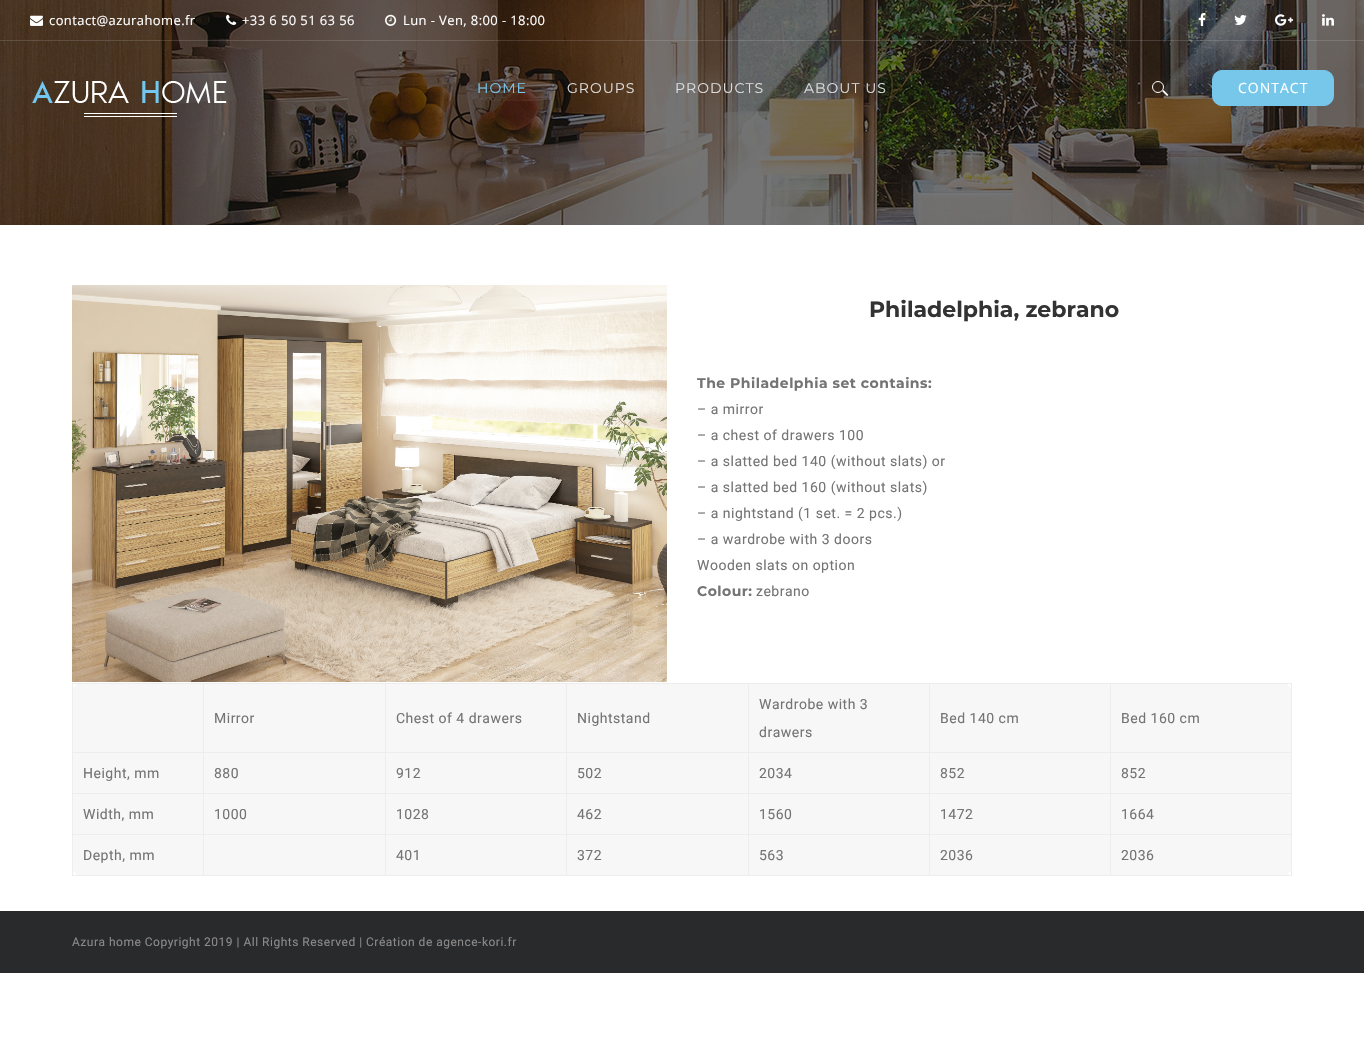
#include "include/core/SkBlurTypes.h"
#include "include/core/SkCanvas.h"
#include "include/core/SkData.h"
#include "include/core/SkFont.h"
#include "include/core/SkFontMgr.h"
#include "include/core/SkImage.h"
#include "include/core/SkMaskFilter.h"
#include "include/core/SkPaint.h"
#include "include/core/SkPathBuilder.h"
#include "include/core/SkTextBlob.h"
#include "include/effects/SkDashPathEffect.h"
#include "include/effects/SkGradientShader.h"
#include "include/utils/SkParsePath.h"

extern sk_sp<SkFontMgr> fontMgr;

static SkFont font(const char* family, int weight, float size, bool italic = false) {
    SkFontStyle style(weight, SkFontStyle::kNormal_Width,
        italic ? SkFontStyle::kItalic_Slant : SkFontStyle::kUpright_Slant);
    SkFont result(fontMgr->matchFamilyStyle(family, style), size);
    result.setSubpixel(true);
    return result;
}

static void drawLabel(SkCanvas* canvas, const char* s, float x, float y, const SkFont& font, SkColor color) {
    SkPaint ink(SkColor4f::FromColor(color));
    ink.setAntiAlias(true);
    canvas->drawString(s, x, y, font, ink);
}

static void drawTracked(SkCanvas* canvas, const char* s, float x, float y, const SkFont& font, const SkPaint& ink, float letter, float word) {
    std::vector<SkGlyphID> glyphs(font.countText(s, strlen(s), SkTextEncoding::kUTF8));
    std::vector<float> xs(glyphs.size());
    font.textToGlyphs(s, strlen(s), SkTextEncoding::kUTF8, glyphs);
    font.getXPos(glyphs, xs, x);
    float extra = 0;
    for (size_t i = 0; i < glyphs.size(); i++) {
        xs[i] += extra;
        extra += letter + word * (glyphs[i] == font.unicharToGlyph(' '));
    }
    canvas->drawTextBlob(SkTextBlob::MakeFromPosHGlyphs(glyphs, xs, y, font), 0, 0, ink);
}

static void fillRect(SkCanvas* canvas, float x, float y, float w, float h, SkColor color) {
    SkPaint ink(SkColor4f::FromColor(color));
    ink.setAntiAlias(true);
    canvas->drawRect(SkRect::MakeXYWH(x, y, w, h), ink);
}

static void fillRRect(SkCanvas* canvas, float x, float y, float w, float h, float radius, SkColor color) {
    SkPaint ink(SkColor4f::FromColor(color));
    ink.setAntiAlias(true);
    canvas->drawRoundRect(SkRect::MakeXYWH(x, y, w, h), radius, radius, ink);
}

static void drawPhoto(SkCanvas* canvas, const char* path, float x, float y, float w, float h) {
    auto image = SkImages::DeferredFromEncodedData(SkData::MakeFromFileName(path));
    canvas->drawImageRect(image, SkRect::MakeXYWH(x, y, w, h), SkSamplingOptions());
}

static SkPath parsePath(const char* data, bool evenOdd = false) {
    SkPath result = *SkParsePath::FromSVGString(data);
    if (evenOdd) result.setFillType(SkPathFillType::kEvenOdd);
    return result;
}

void draw(SkCanvas* canvas) {
    SkPaint paint;
    paint.setAntiAlias(true);
    canvas->clear(0xFFFFFFFF);
    drawPhoto(canvas, "assets/img9.png", 0, 0, 1364, 225);
    fillRect(canvas, 0, 40, 1364, 1, 0x26EEEEEE);
    drawPhoto(canvas, "assets/img1.png", 30, 15, 13, 11);
    SkFont font1 = font("Open Sans", 400, 13);
    paint.setColor(0xFFFFFFFF);
    drawTracked(canvas, "contact@azurahome.fr", 49, 25, font1, paint, 0.4f, 0);
    drawPhoto(canvas, "assets/img2.png", 226, 14, 11, 11);
    drawTracked(canvas, "+33 6 50 51 63 56", 242, 25, font1, paint, 0.4f, 0);
    drawPhoto(canvas, "assets/img3.png", 385, 14, 12, 12);
    drawTracked(canvas, "Lun - Ven, 8:00 - 18:00", 403, 25, font1, paint, 0.4f, 0);
    drawPhoto(canvas, "assets/img4.png", 1198, 13, 8, 13);
    drawPhoto(canvas, "assets/img5.png", 1234, 15, 13, 10);
    drawPhoto(canvas, "assets/img6.png", 1275, 14, 18, 12);
    drawPhoto(canvas, "assets/img7.png", 1322, 14, 12, 12);
    drawPhoto(canvas, "assets/img8.png", 32, 81, 195, 36);
    SkFont font2 = font("Montserrat", 400, 14);
    paint.setColor(0xFF77C7EA);
    drawTracked(canvas, "HOME", 477, 93, font2, paint, 1, 0);
    paint.setColor(0xFFDDDDDD);
    drawTracked(canvas, "GROUPS", 567, 93, font2, paint, 1, 0);
    drawTracked(canvas, "PRODUCTS", 675, 93, font2, paint, 1, 0);
    drawTracked(canvas, "ABOUT US", 804, 93, font2, paint, 1, 0);
    paint.setColor(0xFFFFFFFF);
    canvas->drawPath(parsePath("M1162 91L1163.5 90L1168.5 95L1167 96Z"), paint);
    paint.setStroke(true);
    paint.setStrokeWidth(1);
    canvas->drawCircle(1158, 87, 5.5f, paint);
    paint.setStroke(false);
    paint.setColor(0xFF77C7EA);
    canvas->drawRoundRect(SkRect::MakeXYWH(1212.5f, 70.5f, 121, 35), 9.5f, 9.5f, paint);
    paint.setStroke(true);
    canvas->drawRoundRect(SkRect::MakeXYWH(1212.5f, 70.5f, 121, 35), 9.5f, 9.5f, paint);
    SkFont font3 = font("Open Sans", 400, 14);
    paint.setStroke(false);
    paint.setColor(0xFFFFFFFF);
    drawTracked(canvas, "CONTACT", 1238, 93, font3, paint, 1, 0);
    drawPhoto(canvas, "assets/img10.png", 72, 285, 595, 397);
    SkFont font4 = font("Montserrat", 700, 22);
    drawLabel(canvas, "Philadelphia, zebrano", 869, 317, font4, 0xFF333333);
    SkFont font5 = font("Montserrat", 700, 14);
    paint.setColor(0xFF747474);
    drawTracked(canvas, "The Philadelphia set contains:", 697, 388, font5, paint, 0.5f, 0);
    SkFont font6 = font("Roboto", 400, 14);
    drawTracked(canvas, "– a mirror", 697, 414, font6, paint, 0.5f, 0);
    drawTracked(canvas, "– a chest of drawers 100", 697, 440, font6, paint, 0.5f, 0);
    drawTracked(canvas, "– a slatted bed 140 (without slats) or", 697, 466, font6, paint, 0.5f, 0);
    drawTracked(canvas, "– a slatted bed 160 (without slats)", 697, 492, font6, paint, 0.5f, 0);
    drawTracked(canvas, "– a nightstand (1 set. = 2 pcs.)", 697, 518, font6, paint, 0.5f, 0);
    drawTracked(canvas, "– a wardrobe with 3 doors", 697, 544, font6, paint, 0.5f, 0);
    drawTracked(canvas, "Wooden slats on option", 697, 570, font6, paint, 0.5f, 0);
    drawTracked(canvas, "Colour:", 697, 596, font5, paint, 0.5f, 0);
    drawTracked(canvas, "zebrano", 756, 596, font6, paint, 0.5f, 0);
    fillRRect(canvas, 72, 683, 1220, 193, 10, 0xFFF7F7F7);
    fillRect(canvas, 72, 683, 1220, 1, 0xFFEDEDED);
    fillRect(canvas, 1291, 683, 1, 193, 0xFFEDEDED);
    fillRect(canvas, 72, 875, 1220, 1, 0xFFEDEDED);
    fillRect(canvas, 72, 683, 1, 193, 0xFFEDEDED);
    fillRect(canvas, 1110, 834, 1, 42, 0xFFEDEDED);
    fillRect(canvas, 1110, 834, 182, 1, 0xFFEDEDED);
    fillRect(canvas, 1110, 793, 1, 42, 0xFFEDEDED);
    fillRect(canvas, 1110, 793, 182, 1, 0xFFEDEDED);
    fillRect(canvas, 1110, 752, 1, 42, 0xFFEDEDED);
    fillRect(canvas, 1110, 752, 182, 1, 0xFFEDEDED);
    fillRect(canvas, 1110, 683, 1, 70, 0xFFEDEDED);
    fillRect(canvas, 929, 834, 1, 42, 0xFFEDEDED);
    fillRect(canvas, 929, 834, 182, 1, 0xFFEDEDED);
    fillRect(canvas, 929, 793, 1, 42, 0xFFEDEDED);
    fillRect(canvas, 929, 793, 182, 1, 0xFFEDEDED);
    fillRect(canvas, 929, 752, 1, 42, 0xFFEDEDED);
    fillRect(canvas, 929, 752, 182, 1, 0xFFEDEDED);
    fillRect(canvas, 929, 683, 1, 70, 0xFFEDEDED);
    fillRect(canvas, 748, 834, 1, 42, 0xFFEDEDED);
    fillRect(canvas, 748, 834, 182, 1, 0xFFEDEDED);
    fillRect(canvas, 748, 793, 1, 42, 0xFFEDEDED);
    fillRect(canvas, 748, 793, 182, 1, 0xFFEDEDED);
    fillRect(canvas, 748, 752, 1, 42, 0xFFEDEDED);
    fillRect(canvas, 748, 752, 182, 1, 0xFFEDEDED);
    fillRect(canvas, 748, 683, 1, 70, 0xFFEDEDED);
    fillRect(canvas, 566, 834, 1, 42, 0xFFEDEDED);
    fillRect(canvas, 566, 834, 183, 1, 0xFFEDEDED);
    fillRect(canvas, 566, 793, 1, 42, 0xFFEDEDED);
    fillRect(canvas, 566, 793, 183, 1, 0xFFEDEDED);
    fillRect(canvas, 566, 752, 1, 42, 0xFFEDEDED);
    fillRect(canvas, 566, 752, 183, 1, 0xFFEDEDED);
    fillRect(canvas, 566, 683, 1, 70, 0xFFEDEDED);
    fillRect(canvas, 385, 834, 1, 42, 0xFFEDEDED);
    fillRect(canvas, 385, 834, 182, 1, 0xFFEDEDED);
    fillRect(canvas, 385, 793, 1, 42, 0xFFEDEDED);
    fillRect(canvas, 385, 793, 182, 1, 0xFFEDEDED);
    fillRect(canvas, 385, 752, 1, 42, 0xFFEDEDED);
    fillRect(canvas, 385, 752, 182, 1, 0xFFEDEDED);
    fillRect(canvas, 385, 683, 1, 70, 0xFFEDEDED);
    fillRect(canvas, 203, 834, 1, 42, 0xFFEDEDED);
    fillRect(canvas, 203, 834, 183, 1, 0xFFEDEDED);
    fillRect(canvas, 203, 793, 1, 42, 0xFFEDEDED);
    fillRect(canvas, 203, 793, 183, 1, 0xFFEDEDED);
    fillRect(canvas, 203, 752, 1, 42, 0xFFEDEDED);
    fillRect(canvas, 203, 752, 183, 1, 0xFFEDEDED);
    fillRect(canvas, 203, 683, 1, 70, 0xFFEDEDED);
    fillRect(canvas, 72, 752, 132, 1, 0xFFEDEDED);
    drawTracked(canvas, "Mirror", 214, 723, font6, paint, 0.5f, 0);
    drawTracked(canvas, "Chest of 4 drawers", 396, 723, font6, paint, 0.5f, 0);
    drawTracked(canvas, "Nightstand", 577, 723, font6, paint, 0.5f, 0);
    drawTracked(canvas, "Wardrobe with 3", 759, 709, font6, paint, 0.5f, 0);
    drawTracked(canvas, "drawers", 759, 737, font6, paint, 0.5f, 0);
    drawTracked(canvas, "Bed 140 cm", 940, 723, font6, paint, 0.5f, 0);
    drawTracked(canvas, "Bed 160 cm", 1121, 723, font6, paint, 0.5f, 0);
    fillRect(canvas, 72, 793, 132, 1, 0xFFEDEDED);
    drawTracked(canvas, "Height, mm", 83, 778, font6, paint, 0.5f, 0);
    drawTracked(canvas, "880", 214, 778, font6, paint, 0.5f, 0);
    drawTracked(canvas, "912", 396, 778, font6, paint, 0.5f, 0);
    drawTracked(canvas, "502", 577, 778, font6, paint, 0.5f, 0);
    drawTracked(canvas, "2034", 759, 778, font6, paint, 0.5f, 0);
    drawTracked(canvas, "852", 940, 778, font6, paint, 0.5f, 0);
    drawTracked(canvas, "852", 1121, 778, font6, paint, 0.5f, 0);
    fillRect(canvas, 72, 834, 132, 1, 0xFFEDEDED);
    drawTracked(canvas, "Width, mm", 83, 819, font6, paint, 0.5f, 0);
    drawTracked(canvas, "1000", 214, 819, font6, paint, 0.5f, 0);
    drawTracked(canvas, "1028", 396, 819, font6, paint, 0.5f, 0);
    drawTracked(canvas, "462", 577, 819, font6, paint, 0.5f, 0);
    drawTracked(canvas, "1560", 759, 819, font6, paint, 0.5f, 0);
    drawTracked(canvas, "1472", 940, 819, font6, paint, 0.5f, 0);
    drawTracked(canvas, "1664", 1121, 819, font6, paint, 0.5f, 0);
    drawTracked(canvas, "Depth, mm", 83, 860, font6, paint, 0.5f, 0);
    drawTracked(canvas, "401", 396, 860, font6, paint, 0.5f, 0);
    drawTracked(canvas, "372", 577, 860, font6, paint, 0.5f, 0);
    drawTracked(canvas, "563", 759, 860, font6, paint, 0.5f, 0);
    drawTracked(canvas, "2036", 940, 860, font6, paint, 0.5f, 0);
    drawTracked(canvas, "2036", 1121, 860, font6, paint, 0.5f, 0);
    fillRect(canvas, 0, 911, 1364, 62, 0xFF282A2B);
    SkFont font7 = font("Roboto", 400, 12);
    paint.setColor(0xFF8C8989);
    drawTracked(canvas, "Azura home Copyright 2019 | All Rights Reserved | Création de agence-kori.fr", 72, 946, font7, paint, 0.5f, 0);
}
